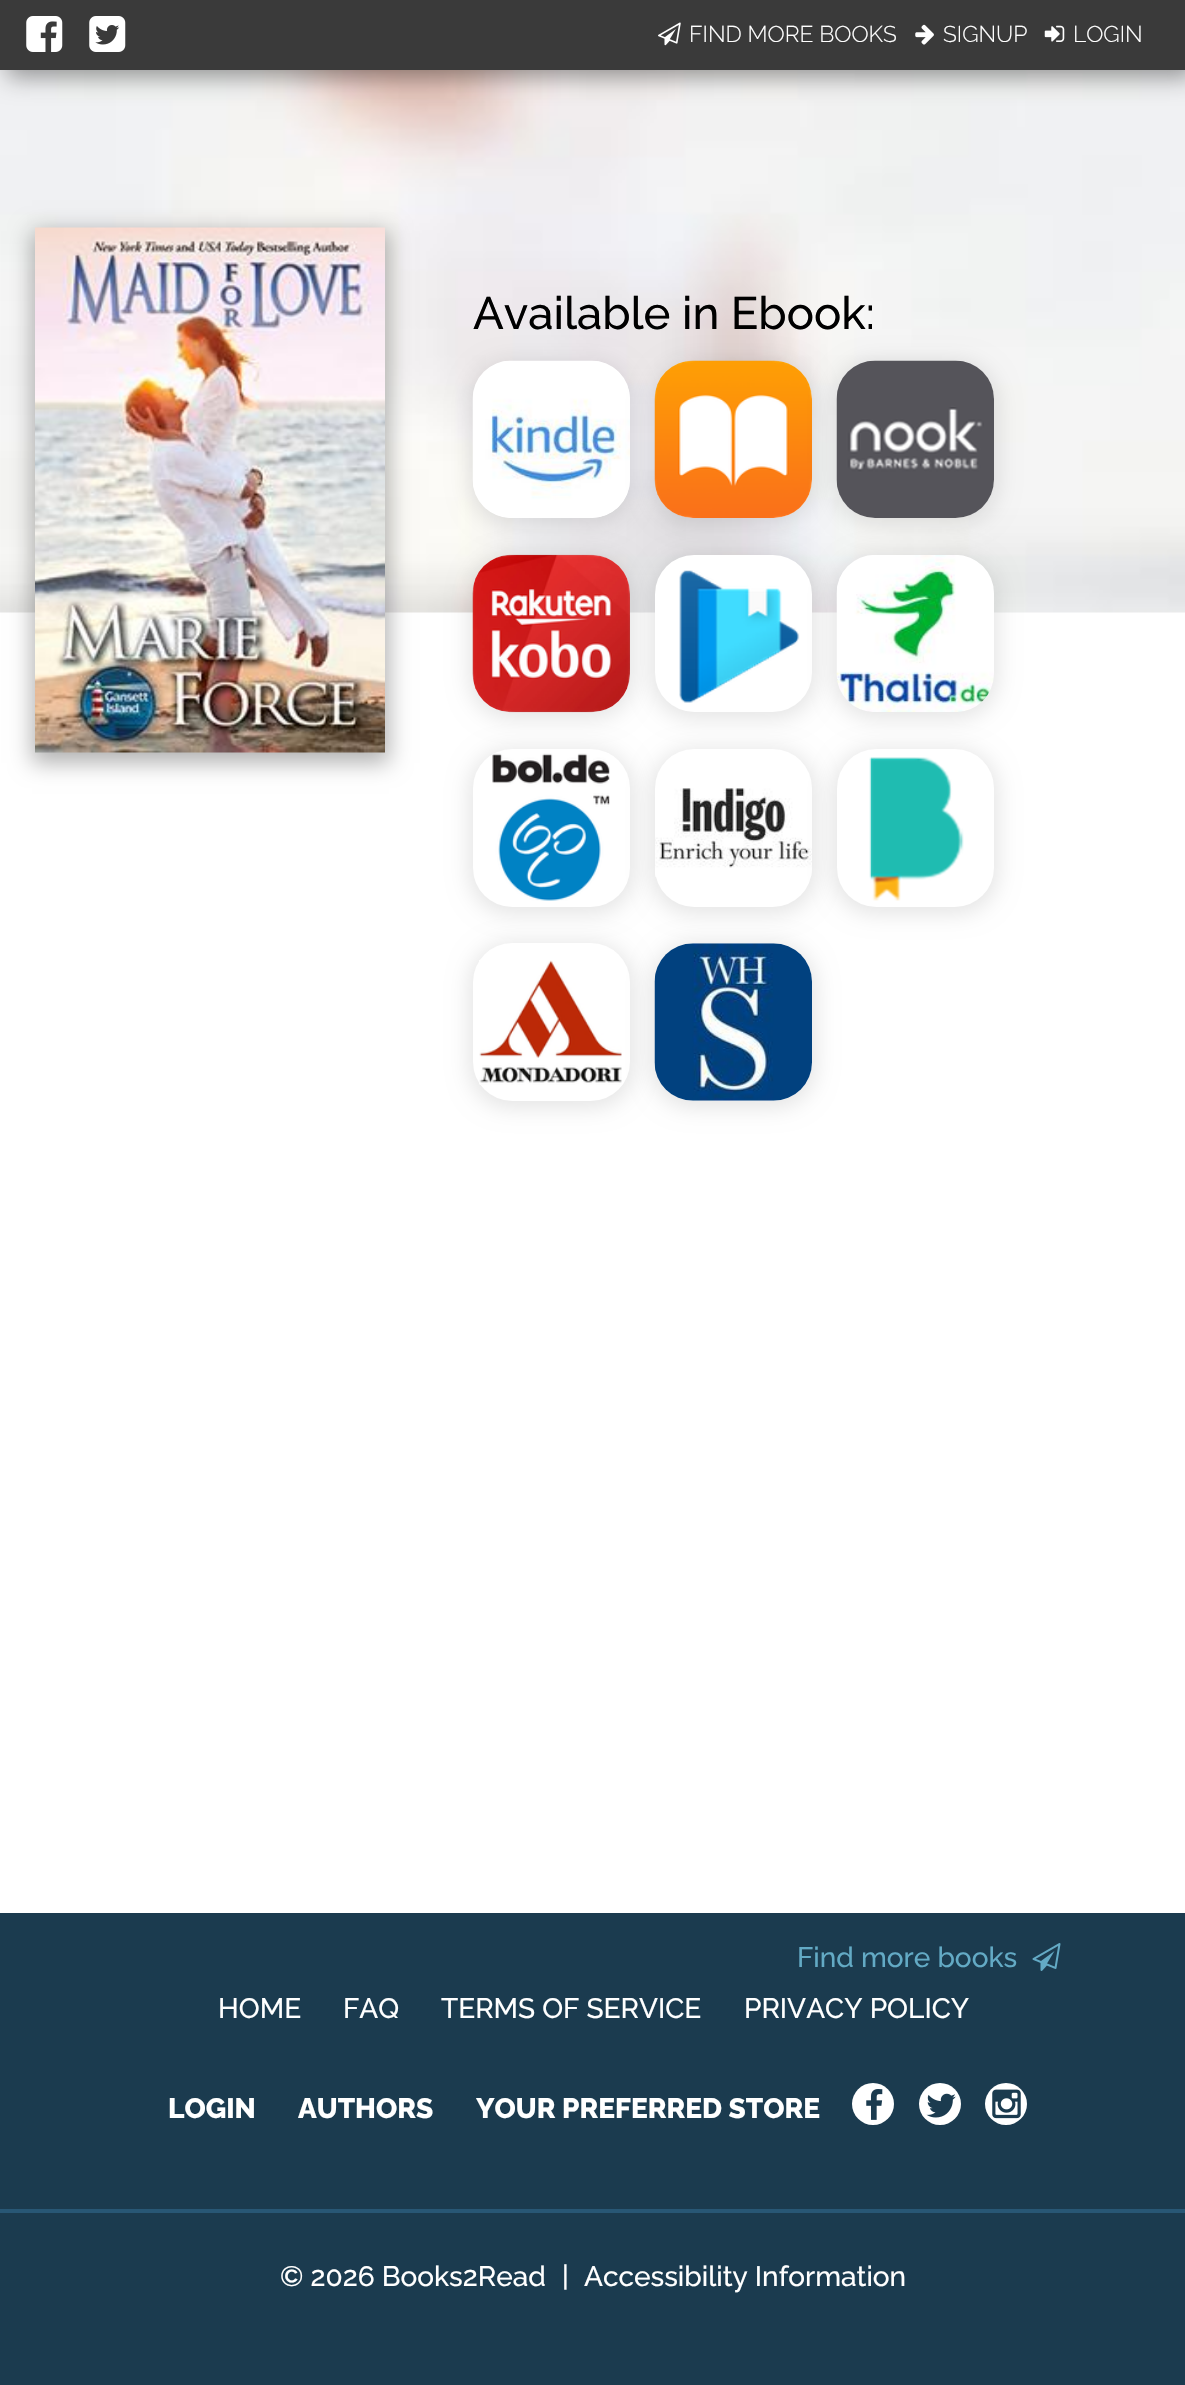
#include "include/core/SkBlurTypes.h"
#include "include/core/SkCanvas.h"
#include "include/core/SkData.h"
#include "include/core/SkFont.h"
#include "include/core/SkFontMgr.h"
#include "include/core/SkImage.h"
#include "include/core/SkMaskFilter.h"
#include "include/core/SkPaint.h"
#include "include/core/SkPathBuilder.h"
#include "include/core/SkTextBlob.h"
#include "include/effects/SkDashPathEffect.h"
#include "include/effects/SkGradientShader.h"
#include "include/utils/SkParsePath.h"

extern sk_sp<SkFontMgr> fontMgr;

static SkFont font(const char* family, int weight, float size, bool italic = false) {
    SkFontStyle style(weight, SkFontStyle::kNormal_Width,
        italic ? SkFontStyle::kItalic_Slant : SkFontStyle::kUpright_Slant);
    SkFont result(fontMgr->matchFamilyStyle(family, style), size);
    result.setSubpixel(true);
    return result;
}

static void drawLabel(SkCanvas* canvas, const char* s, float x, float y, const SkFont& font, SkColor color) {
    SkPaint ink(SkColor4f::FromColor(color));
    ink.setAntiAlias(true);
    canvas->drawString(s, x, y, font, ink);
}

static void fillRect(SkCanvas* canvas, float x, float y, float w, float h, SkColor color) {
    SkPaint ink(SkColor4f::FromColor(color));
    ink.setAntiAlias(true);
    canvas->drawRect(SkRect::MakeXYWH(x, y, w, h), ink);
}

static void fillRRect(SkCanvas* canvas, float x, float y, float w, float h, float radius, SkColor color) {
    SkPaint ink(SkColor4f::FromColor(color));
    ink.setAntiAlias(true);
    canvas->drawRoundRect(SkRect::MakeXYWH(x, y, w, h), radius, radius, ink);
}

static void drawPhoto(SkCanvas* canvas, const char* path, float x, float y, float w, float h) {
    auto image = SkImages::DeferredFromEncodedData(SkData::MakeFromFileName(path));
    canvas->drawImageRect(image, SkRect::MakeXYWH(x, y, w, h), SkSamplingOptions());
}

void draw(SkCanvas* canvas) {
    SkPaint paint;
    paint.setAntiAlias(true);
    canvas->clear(0xFFFFFFFF);
    drawPhoto(canvas, "assets/img1.png", 0, 70, 1185, 543);
    paint.setColor(0x66000000);
    paint.setMaskFilter(SkMaskFilter::MakeBlur(kNormal_SkBlurStyle, 12));
    canvas->drawRect(SkRect::MakeXYWH(7, 7, 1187, 70), paint);
    paint.setMaskFilter(nullptr);
    fillRect(canvas, 0, 0, 1185, 70, 0xFF3A3A3A);
    drawPhoto(canvas, "assets/img2.png", 26, 16, 37, 36);
    drawPhoto(canvas, "assets/img3.png", 89, 16, 37, 36);
    drawPhoto(canvas, "assets/img4.png", 658, 22, 23, 24);
    SkFont font1 = font("Raleway", 300, 22.75f);
    drawLabel(canvas, "FIND MORE BOOKS", 689, 42, font1, 0xFFFFFFFF);
    drawPhoto(canvas, "assets/img5.png", 915, 24, 19, 21);
    drawLabel(canvas, "SIGNUP", 943, 42, font1, 0xFFFFFFFF);
    drawPhoto(canvas, "assets/img6.png", 1044, 25, 21, 17);
    drawLabel(canvas, "LOGIN", 1073, 42, font1, 0xFFFFFFFF);
    paint.setColor(0x4D000000);
    paint.setMaskFilter(SkMaskFilter::MakeBlur(kNormal_SkBlurStyle, 10.5f));
    canvas->drawRect(SkRect::MakeXYWH(32, 231, 357, 532), paint);
    paint.setMaskFilter(nullptr);
    drawPhoto(canvas, "assets/img7.png", 35, 227, 350, 526);
    paint.setColor(0x1A000000);
    paint.setMaskFilter(SkMaskFilter::MakeBlur(kNormal_SkBlurStyle, 10.5f));
    canvas->drawRoundRect(SkRect::MakeXYWH(469, 361, 165, 164), 42, 42, paint);
    paint.setMaskFilter(nullptr);
    fillRRect(canvas, 473, 361, 157, 157, 39, 0xFFFFFFFF);
    drawPhoto(canvas, "assets/img8.png", 472, 360, 158, 158);
    paint.setMaskFilter(SkMaskFilter::MakeBlur(kNormal_SkBlurStyle, 10.5f));
    canvas->drawRoundRect(SkRect::MakeXYWH(651, 361, 165, 164), 42, 42, paint);
    paint.setMaskFilter(nullptr);
    fillRRect(canvas, 655, 361, 157, 157, 39, 0xFFFFFFFF);
    drawPhoto(canvas, "assets/img9.png", 654, 360, 158, 158);
    paint.setMaskFilter(SkMaskFilter::MakeBlur(kNormal_SkBlurStyle, 10.5f));
    canvas->drawRoundRect(SkRect::MakeXYWH(833, 361, 165, 164), 42, 42, paint);
    paint.setMaskFilter(nullptr);
    SkFont font2 = font("Raleway", 500, 45.5f);
    drawLabel(canvas, "Available in Ebook:", 473, 329, font2, 0xFF000000);
    fillRRect(canvas, 837, 361, 157, 157, 39, 0xFFFFFFFF);
    drawPhoto(canvas, "assets/img10.png", 836, 360, 158, 158);
    paint.setMaskFilter(SkMaskFilter::MakeBlur(kNormal_SkBlurStyle, 10.5f));
    canvas->drawRoundRect(SkRect::MakeXYWH(469, 555, 165, 164), 42, 42, paint);
    paint.setMaskFilter(nullptr);
    fillRRect(canvas, 473, 555, 157, 157, 39, 0xFFFFFFFF);
    drawPhoto(canvas, "assets/img11.png", 472, 554, 158, 159);
    paint.setMaskFilter(SkMaskFilter::MakeBlur(kNormal_SkBlurStyle, 10.5f));
    canvas->drawRoundRect(SkRect::MakeXYWH(651, 555, 165, 164), 42, 42, paint);
    paint.setMaskFilter(nullptr);
    fillRRect(canvas, 655, 555, 157, 157, 39, 0xFFFFFFFF);
    paint.setMaskFilter(SkMaskFilter::MakeBlur(kNormal_SkBlurStyle, 10.5f));
    canvas->drawRoundRect(SkRect::MakeXYWH(833, 555, 165, 164), 42, 42, paint);
    paint.setMaskFilter(nullptr);
    drawPhoto(canvas, "assets/img12.png", 836, 555, 158, 157);
    drawPhoto(canvas, "assets/img13.png", 679, 570, 121, 133);
    paint.setMaskFilter(SkMaskFilter::MakeBlur(kNormal_SkBlurStyle, 10.5f));
    canvas->drawRoundRect(SkRect::MakeXYWH(469, 749, 165, 165), 42, 42, paint);
    paint.setMaskFilter(nullptr);
    fillRRect(canvas, 473, 749, 157, 158, 39, 0xFFFFFFFF);
    paint.setMaskFilter(SkMaskFilter::MakeBlur(kNormal_SkBlurStyle, 10.5f));
    canvas->drawRoundRect(SkRect::MakeXYWH(651, 749, 165, 165), 42, 42, paint);
    paint.setMaskFilter(nullptr);
    fillRRect(canvas, 655, 749, 157, 158, 39, 0xFFFFFFFF);
    drawPhoto(canvas, "assets/img15.png", 655, 788, 157, 89);
    paint.setMaskFilter(SkMaskFilter::MakeBlur(kNormal_SkBlurStyle, 10.5f));
    canvas->drawRoundRect(SkRect::MakeXYWH(833, 749, 165, 165), 42, 42, paint);
    paint.setMaskFilter(nullptr);
    fillRRect(canvas, 837, 749, 157, 158, 39, 0xFFFFFFFF);
    drawPhoto(canvas, "assets/img14.png", 492, 753, 118, 148);
    drawPhoto(canvas, "assets/img16.png", 869, 757, 95, 144);
    paint.setMaskFilter(SkMaskFilter::MakeBlur(kNormal_SkBlurStyle, 10.5f));
    canvas->drawRoundRect(SkRect::MakeXYWH(469, 943, 165, 165), 42, 42, paint);
    paint.setMaskFilter(nullptr);
    fillRRect(canvas, 473, 943, 157, 158, 39, 0xFFFFFFFF);
    drawPhoto(canvas, "assets/img18.png", 479, 960, 143, 125);
    paint.setMaskFilter(SkMaskFilter::MakeBlur(kNormal_SkBlurStyle, 10.5f));
    canvas->drawRoundRect(SkRect::MakeXYWH(651, 943, 165, 165), 42, 42, paint);
    paint.setMaskFilter(nullptr);
    fillRRect(canvas, 655, 943, 157, 158, 39, 0xFFFFFFFF);
    drawPhoto(canvas, "assets/img17.png", 654, 943, 158, 158);
    fillRect(canvas, 0, 1913, 1185, 472, 0xFF1B3B4F);
    SkFont font3 = font("Raleway", 500, 28);
    drawLabel(canvas, "Find more books", 797, 1967, font3, 0xFF63AAC5);
    drawPhoto(canvas, "assets/img19.png", 1032, 1943, 29, 28);
    drawLabel(canvas, "HOME", 218, 2018, font3, 0xFFFFFFFF);
    drawLabel(canvas, "FAQ", 343, 2018, font3, 0xFFFFFFFF);
    drawLabel(canvas, "TERMS OF SERVICE", 441, 2018, font3, 0xFFFFFFFF);
    drawLabel(canvas, "PRIVACY POLICY", 744, 2018, font3, 0xFFFFFFFF);
    SkFont font4 = font("Raleway", 800, 28);
    drawLabel(canvas, "LOGIN", 168, 2118, font4, 0xFFFFFFFF);
    drawLabel(canvas, "AUTHORS", 298, 2118, font4, 0xFFFFFFFF);
    drawLabel(canvas, "YOUR PREFERRED STORE", 476, 2118, font4, 0xFFFFFFFF);
    paint.setColor(0xFFFFFFFF);
    canvas->drawCircle(873, 2104, 21, paint);
    drawPhoto(canvas, "assets/img20.png", 866, 2089, 17, 31);
    canvas->drawCircle(940, 2104, 21, paint);
    drawPhoto(canvas, "assets/img21.png", 926, 2093, 30, 25);
    canvas->drawCircle(1006, 2104, 21, paint);
    drawPhoto(canvas, "assets/img22.png", 992, 2089, 29, 30);
    fillRect(canvas, 0, 2209, 1185, 4, 0xFF285775);
    drawLabel(canvas, "© 2026 Books2Read", 280, 2286, font3, 0xFFFFFFFF);
    drawLabel(canvas, "|", 562, 2286, font3, 0xFFFFFFFF);
    drawLabel(canvas, "Accessibility Information", 584, 2286, font3, 0xFFFFFFFF);
}
